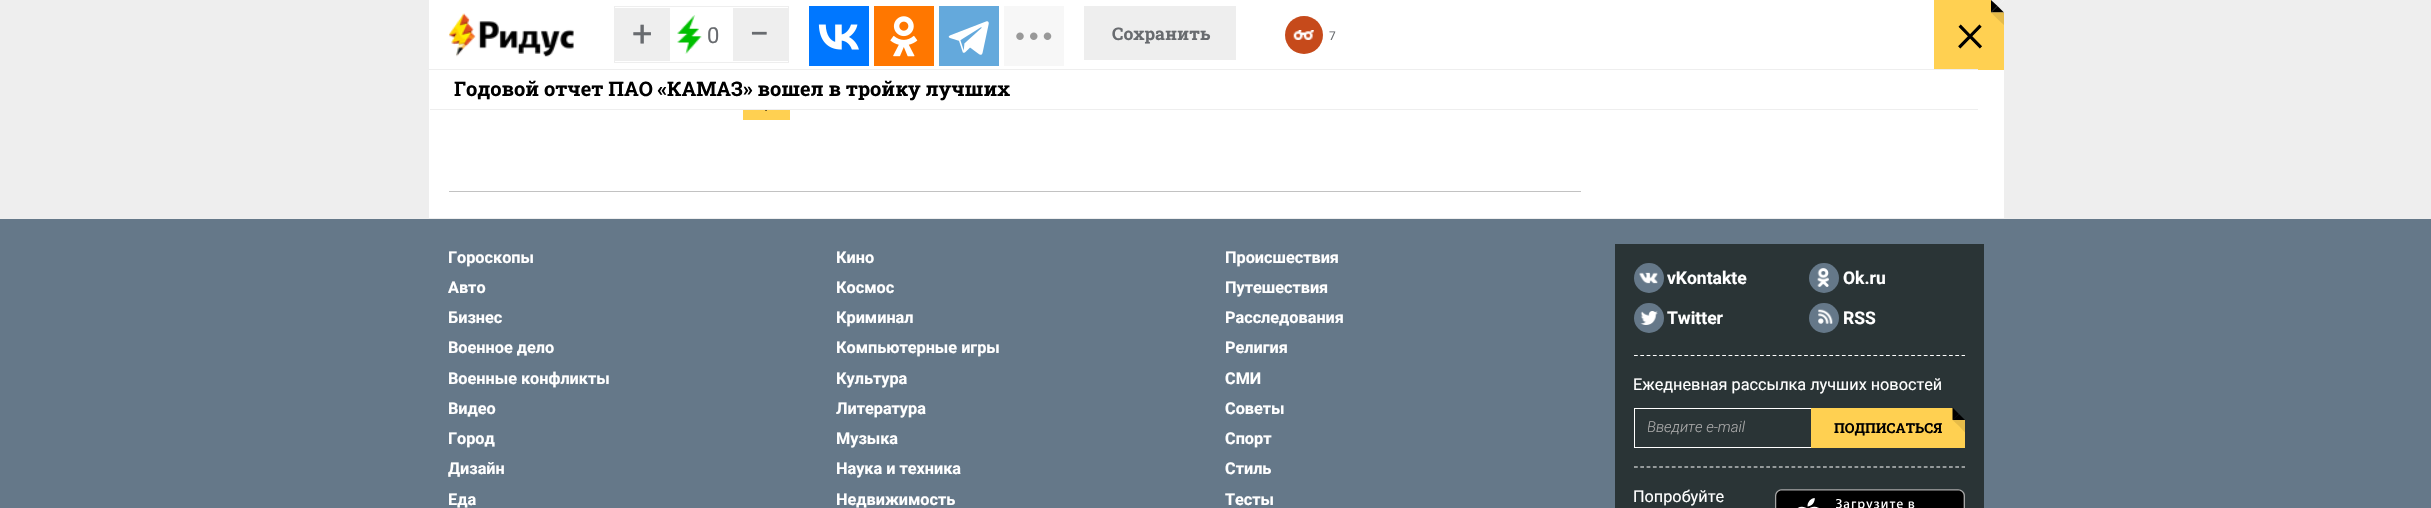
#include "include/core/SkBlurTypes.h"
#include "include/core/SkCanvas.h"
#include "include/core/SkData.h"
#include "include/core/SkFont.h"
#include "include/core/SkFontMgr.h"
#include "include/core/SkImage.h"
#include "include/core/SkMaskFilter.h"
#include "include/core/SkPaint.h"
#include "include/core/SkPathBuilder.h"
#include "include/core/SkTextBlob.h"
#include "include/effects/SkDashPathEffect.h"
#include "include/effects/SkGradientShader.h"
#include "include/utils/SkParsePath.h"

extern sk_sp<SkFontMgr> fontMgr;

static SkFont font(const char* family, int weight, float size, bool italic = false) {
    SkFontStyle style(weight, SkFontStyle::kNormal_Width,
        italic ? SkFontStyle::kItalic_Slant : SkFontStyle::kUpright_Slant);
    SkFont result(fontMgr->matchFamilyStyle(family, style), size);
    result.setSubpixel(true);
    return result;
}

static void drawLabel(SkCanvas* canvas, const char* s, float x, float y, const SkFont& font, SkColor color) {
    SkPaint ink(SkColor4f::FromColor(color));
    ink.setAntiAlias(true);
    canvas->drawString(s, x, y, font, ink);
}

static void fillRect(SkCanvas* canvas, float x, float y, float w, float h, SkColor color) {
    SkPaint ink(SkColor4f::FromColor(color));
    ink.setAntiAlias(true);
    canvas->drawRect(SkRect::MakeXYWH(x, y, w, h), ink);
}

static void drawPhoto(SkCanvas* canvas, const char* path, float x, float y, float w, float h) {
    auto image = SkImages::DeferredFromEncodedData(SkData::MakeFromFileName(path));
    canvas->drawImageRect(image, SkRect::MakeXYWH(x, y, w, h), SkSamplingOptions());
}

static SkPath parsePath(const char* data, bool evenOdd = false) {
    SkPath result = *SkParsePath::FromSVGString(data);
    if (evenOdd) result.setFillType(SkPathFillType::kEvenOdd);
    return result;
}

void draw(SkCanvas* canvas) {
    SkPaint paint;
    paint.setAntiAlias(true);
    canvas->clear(0xFFEEEEEE);
    fillRect(canvas, 429, 0, 1575, 69, 0xFFFFFFFF);
    drawPhoto(canvas, "assets/img1.png", 449, 13, 125, 44);
    paint.setStroke(true);
    paint.setStrokeWidth(1);
    paint.setColor(0xFFEEEEEE);
    canvas->drawRect(SkRect::MakeXYWH(614.5f, 6.5f, 174, 56), paint);
    fillRect(canvas, 615, 8, 55, 53, 0xFFEEEEEE);
    SkFont font1 = font("Roboto", 400, 36);
    drawLabel(canvas, "+", 632, 46, font1, 0xFF686B6F);
    drawPhoto(canvas, "assets/img2.png", 677, 15, 25, 39);
    SkFont font2 = font("Roboto", 400, 22);
    drawLabel(canvas, "0", 707, 43, font2, 0xFF686B6F);
    fillRect(canvas, 733, 8, 55, 53, 0xFFEEEEEE);
    drawLabel(canvas, "−", 749, 46, font1, 0xFF686B6F);
    fillRect(canvas, 809, 6, 60, 60, 0xFF0077FF);
    drawPhoto(canvas, "assets/img3.png", 818, 24, 41, 26);
    fillRect(canvas, 874, 6, 60, 60, 0xFFFF7700);
    drawPhoto(canvas, "assets/img4.png", 890, 16, 28, 41);
    fillRect(canvas, 939, 6, 60, 60, 0xFF64A9DC);
    drawPhoto(canvas, "assets/img5.png", 948, 21, 41, 34);
    fillRect(canvas, 1004, 6, 60, 60, 0xFFF7F7F7);
    drawPhoto(canvas, "assets/img6.png", 1016, 32, 36, 8);
    fillRect(canvas, 1084, 6, 152, 54, 0xFFEEEEEE);
    SkFont font3 = font("Roboto Slab", 700, 17.5f);
    drawLabel(canvas, "Сохранить", 1112, 40, font3, 0xFF686B6F);
    paint.setStroke(false);
    paint.setColor(0xFFC64A1B);
    canvas->drawCircle(1304, 35, 19, paint);
    drawPhoto(canvas, "assets/img7.png", 1293, 30, 21, 10);
    SkFont font4 = font("Roboto", 400, 12);
    drawLabel(canvas, "7", 1329, 40, font4, 0xFF686B6F);
    fillRect(canvas, 1934, 0, 56, 70, 0xFFFFD051);
    SkFont font5 = font("Roboto Slab", 300, 56);
    drawLabel(canvas, "×", 1956, 55, font5, 0xFF000000);
    fillRect(canvas, 1990, 13, 14, 57, 0xFFFFD051);
    paint.setColor(0xFFFFD051);
    canvas->drawPath(parsePath("M1990 0V13H2003V12.5H1991V0Z"), paint);
    paint.setColor(0xFFEEEEEE);
    canvas->drawPath(parsePath("M1991 0H2004L1997.5 6Z"), paint);
    canvas->drawPath(parsePath("M2004 0V12.5L1997.5 6Z"), paint);
    paint.setColor(0xFF000000);
    canvas->drawPath(parsePath("M2004 12.5H1991L1997.5 6Z"), paint);
    canvas->drawPath(parsePath("M1991 12.5V0L1997.5 6Z"), paint);
    paint.setColor(0xFFE6BB49);
    canvas->drawPath(parsePath("M1991 12.5H2004L1997.5 19Z"), paint);
    paint.setColor(0x1A000000);
    canvas->drawPath(parsePath("M2004 12.5V25L1997.5 19Z"), paint);
    fillRect(canvas, 429, 70, 1575, 148, 0xFFFFFFFF);
    fillRect(canvas, 743, 110, 47, 10, 0xFFFFD051);
    paint.setColor(0xFF000000);
    canvas->drawPath(parsePath("M760 105H772.5L766 111Z"), paint);
    fillRect(canvas, 760, 105, 13, 4, 0xFFFFFFFF);
    fillRect(canvas, 1934, 69, 44, 1, 0xFFEEEEEE);
    fillRect(canvas, 430, 109, 1548, 1, 0xFFEEEEEE);
    SkFont font6 = font("Roboto Slab", 700, 20);
    drawLabel(canvas, "Годовой отчет ПАО «КАМАЗ» вошел в тройку лучших", 454, 96, font6, 0xFF000000);
    fillRect(canvas, 449, 191, 1132, 1, 0xFFC2C2C2);
    fillRect(canvas, 0, 219, 2431, 289, 0xFF657889);
    SkFont font7 = font("Roboto", 700, 16.25f);
    drawLabel(canvas, "Гороскопы", 448, 263, font7, 0xFFFFFFFF);
    drawLabel(canvas, "Кино", 836, 263, font7, 0xFFFFFFFF);
    drawLabel(canvas, "Происшествия", 1225, 263, font7, 0xFFFFFFFF);
    drawLabel(canvas, "Авто", 448, 293, font7, 0xFFFFFFFF);
    drawLabel(canvas, "Космос", 836, 293, font7, 0xFFFFFFFF);
    drawLabel(canvas, "Путешествия", 1225, 293, font7, 0xFFFFFFFF);
    drawLabel(canvas, "Бизнес", 448, 323, font7, 0xFFFFFFFF);
    drawLabel(canvas, "Криминал", 836, 323, font7, 0xFFFFFFFF);
    drawLabel(canvas, "Расследования", 1225, 323, font7, 0xFFFFFFFF);
    drawLabel(canvas, "Военное дело", 448, 353, font7, 0xFFFFFFFF);
    drawLabel(canvas, "Компьютерные игры", 836, 353, font7, 0xFFFFFFFF);
    drawLabel(canvas, "Религия", 1225, 353, font7, 0xFFFFFFFF);
    drawLabel(canvas, "Военные конфликты", 448, 384, font7, 0xFFFFFFFF);
    drawLabel(canvas, "Культура", 836, 384, font7, 0xFFFFFFFF);
    drawLabel(canvas, "СМИ", 1225, 384, font7, 0xFFFFFFFF);
    drawLabel(canvas, "Видео", 448, 414, font7, 0xFFFFFFFF);
    drawLabel(canvas, "Литература", 836, 414, font7, 0xFFFFFFFF);
    drawLabel(canvas, "Советы", 1225, 414, font7, 0xFFFFFFFF);
    drawLabel(canvas, "Город", 448, 444, font7, 0xFFFFFFFF);
    drawLabel(canvas, "Музыка", 836, 444, font7, 0xFFFFFFFF);
    drawLabel(canvas, "Спорт", 1225, 444, font7, 0xFFFFFFFF);
    drawLabel(canvas, "Дизайн", 448, 474, font7, 0xFFFFFFFF);
    drawLabel(canvas, "Наука и техника", 836, 474, font7, 0xFFFFFFFF);
    drawLabel(canvas, "Стиль", 1225, 474, font7, 0xFFFFFFFF);
    drawLabel(canvas, "Еда", 448, 505, font7, 0xFFFFFFFF);
    drawLabel(canvas, "Недвижимость", 836, 505, font7, 0xFFFFFFFF);
    drawLabel(canvas, "Тесты", 1225, 505, font7, 0xFFFFFFFF);
    fillRect(canvas, 1615, 244, 369, 264, 0xFF2A3436);
    paint.setColor(0xFF657889);
    canvas->drawCircle(1649, 278, 15, paint);
    drawPhoto(canvas, "assets/img8.png", 1639, 272, 19, 12);
    SkFont font8 = font("Roboto", 700, 17.5f);
    drawLabel(canvas, "vKontakte", 1667, 284, font8, 0xFFFFFFFF);
    canvas->drawCircle(1824, 278, 15, paint);
    drawPhoto(canvas, "assets/img9.png", 1817, 268, 12, 19);
    drawLabel(canvas, "Ok.ru", 1843, 284, font8, 0xFFFFFFFF);
    canvas->drawCircle(1649, 318, 15, paint);
    drawPhoto(canvas, "assets/img10.png", 1640, 311, 18, 14);
    drawLabel(canvas, "Twitter", 1667, 324, font8, 0xFFFFFFFF);
    canvas->drawCircle(1824, 318, 15, paint);
    drawPhoto(canvas, "assets/img11.png", 1818, 309, 15, 15);
    drawLabel(canvas, "RSS", 1843, 324, font8, 0xFFFFFFFF);
    paint.setStroke(true);
    paint.setStrokeWidth(1.2f);
    paint.setColor(0xFFFFFFFF);
    paint.setPathEffect(SkDashPathEffect::Make({{3.75f, 2.55f}}, 0));
    canvas->drawPath(parsePath("M1634 355.5H1965"), paint);
    paint.setPathEffect(nullptr);
    SkFont font9 = font("Roboto", 400, 16.25f);
    drawLabel(canvas, "Ежедневная рассылка лучших новостей", 1633, 390, font9, 0xFFFFFFFF);
    paint.setStrokeWidth(1);
    canvas->drawRect(SkRect::MakeXYWH(1634.5f, 408.5f, 296, 39), paint);
    canvas->save();
    canvas->clipRect(SkRect::MakeXYWH(1648, 419, 157, 17));
    SkFont font10 = font("Roboto", 300, 15, true);
    drawLabel(canvas, "Введите e-mail", 1647, 432, font10, 0xFFA9A9A9);
    canvas->restore();
    fillRect(canvas, 1811, 408, 142, 40, 0xFFFFD051);
    SkFont font11 = font("Roboto Slab", 700, 13.75f);
    drawLabel(canvas, "ПОДПИСАТЬСЯ", 1834, 433, font11, 0xFF000000);
    fillRect(canvas, 1953, 420, 12, 28, 0xFFFFD051);
    paint.setStroke(false);
    paint.setColor(0xFF000000);
    canvas->drawPath(parsePath("M1965 420H1952.5L1959 414Z"), paint);
    canvas->drawPath(parsePath("M1952.5 420V407.5L1959 414Z"), paint);
    paint.setColor(0xFFE6BB49);
    canvas->drawPath(parsePath("M1952.5 420H1965L1959 426Z"), paint);
    paint.setColor(0x1A000000);
    canvas->drawPath(parsePath("M1965 420V432.5L1959 426Z"), paint);
    paint.setStroke(true);
    paint.setStrokeWidth(1.2f);
    paint.setColor(0xFFFFFFFF);
    paint.setPathEffect(SkDashPathEffect::Make({{3.75f, 2.55f}}, 0));
    canvas->drawPath(parsePath("M1634 467H1965"), paint);
    paint.setPathEffect(nullptr);
    drawLabel(canvas, "Попробуйте", 1633, 502, font9, 0xFFFFFFFF);
    drawPhoto(canvas, "assets/img12.png", 1775, 489, 190, 19);
}
